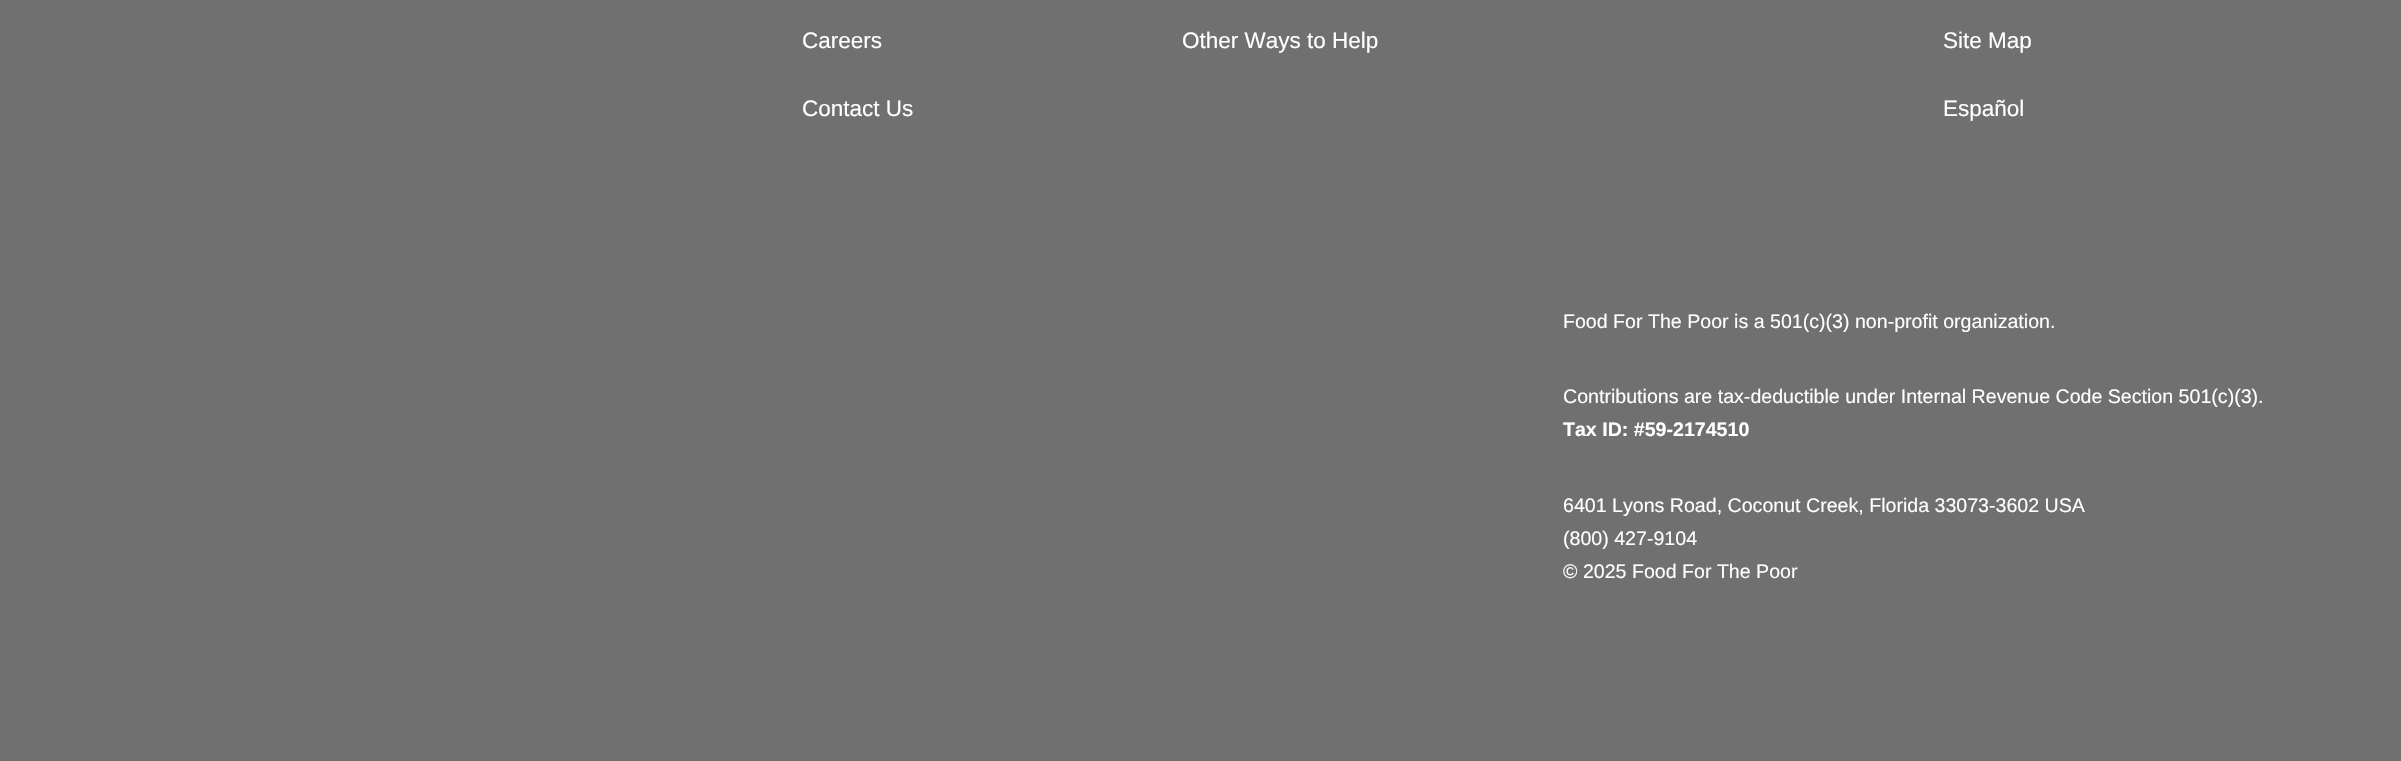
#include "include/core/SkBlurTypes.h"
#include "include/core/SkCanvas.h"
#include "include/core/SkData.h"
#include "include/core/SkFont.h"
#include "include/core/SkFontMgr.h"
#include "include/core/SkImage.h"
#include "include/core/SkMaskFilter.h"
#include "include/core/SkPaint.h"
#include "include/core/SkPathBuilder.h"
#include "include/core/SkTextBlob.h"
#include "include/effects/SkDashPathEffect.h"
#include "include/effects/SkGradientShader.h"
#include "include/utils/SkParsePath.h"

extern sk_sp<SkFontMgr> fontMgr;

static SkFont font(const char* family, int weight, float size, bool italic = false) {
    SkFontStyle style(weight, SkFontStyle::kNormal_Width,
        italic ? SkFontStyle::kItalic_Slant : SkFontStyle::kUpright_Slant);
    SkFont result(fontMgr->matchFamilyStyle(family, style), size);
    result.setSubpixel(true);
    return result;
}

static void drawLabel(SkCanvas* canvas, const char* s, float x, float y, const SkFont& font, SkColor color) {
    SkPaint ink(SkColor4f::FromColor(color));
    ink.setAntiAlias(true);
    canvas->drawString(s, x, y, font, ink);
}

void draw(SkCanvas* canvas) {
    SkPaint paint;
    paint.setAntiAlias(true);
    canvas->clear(0xFF707070);
    SkFont font1 = font("Liberation Sans", 400, 22.5f);
    drawLabel(canvas, "Careers", 802, 48, font1, 0xFFFFFFFF);
    drawLabel(canvas, "Contact Us", 802, 116, font1, 0xFFFFFFFF);
    drawLabel(canvas, "Other Ways to Help", 1182, 48, font1, 0xFFFFFFFF);
    drawLabel(canvas, "Site Map", 1943, 48, font1, 0xFFFFFFFF);
    drawLabel(canvas, "Español", 1943, 116, font1, 0xFFFFFFFF);
    SkFont font2 = font("Liberation Sans", 400, 19.6f);
    drawLabel(canvas, "Food For The Poor is a 501(c)(3) non-profit organization.", 1563, 328, font2, 0xFFFFFFFF);
    drawLabel(canvas, "Contributions are tax-deductible under Internal Revenue Code Section 501(c)(3).", 1563, 403, font2, 0xFFFFFFFF);
    SkFont font3 = font("Liberation Sans", 700, 19.6f);
    drawLabel(canvas, "Tax ID: #59-2174510", 1563, 436, font3, 0xFFFFFFFF);
    drawLabel(canvas, "6401 Lyons Road, Coconut Creek, Florida 33073-3602 USA", 1563, 512, font2, 0xFFFFFFFF);
    drawLabel(canvas, "(800) 427-9104", 1563, 545, font2, 0xFFFFFFFF);
    drawLabel(canvas, "© 2025 Food For The Poor", 1563, 578, font2, 0xFFFFFFFF);
}
